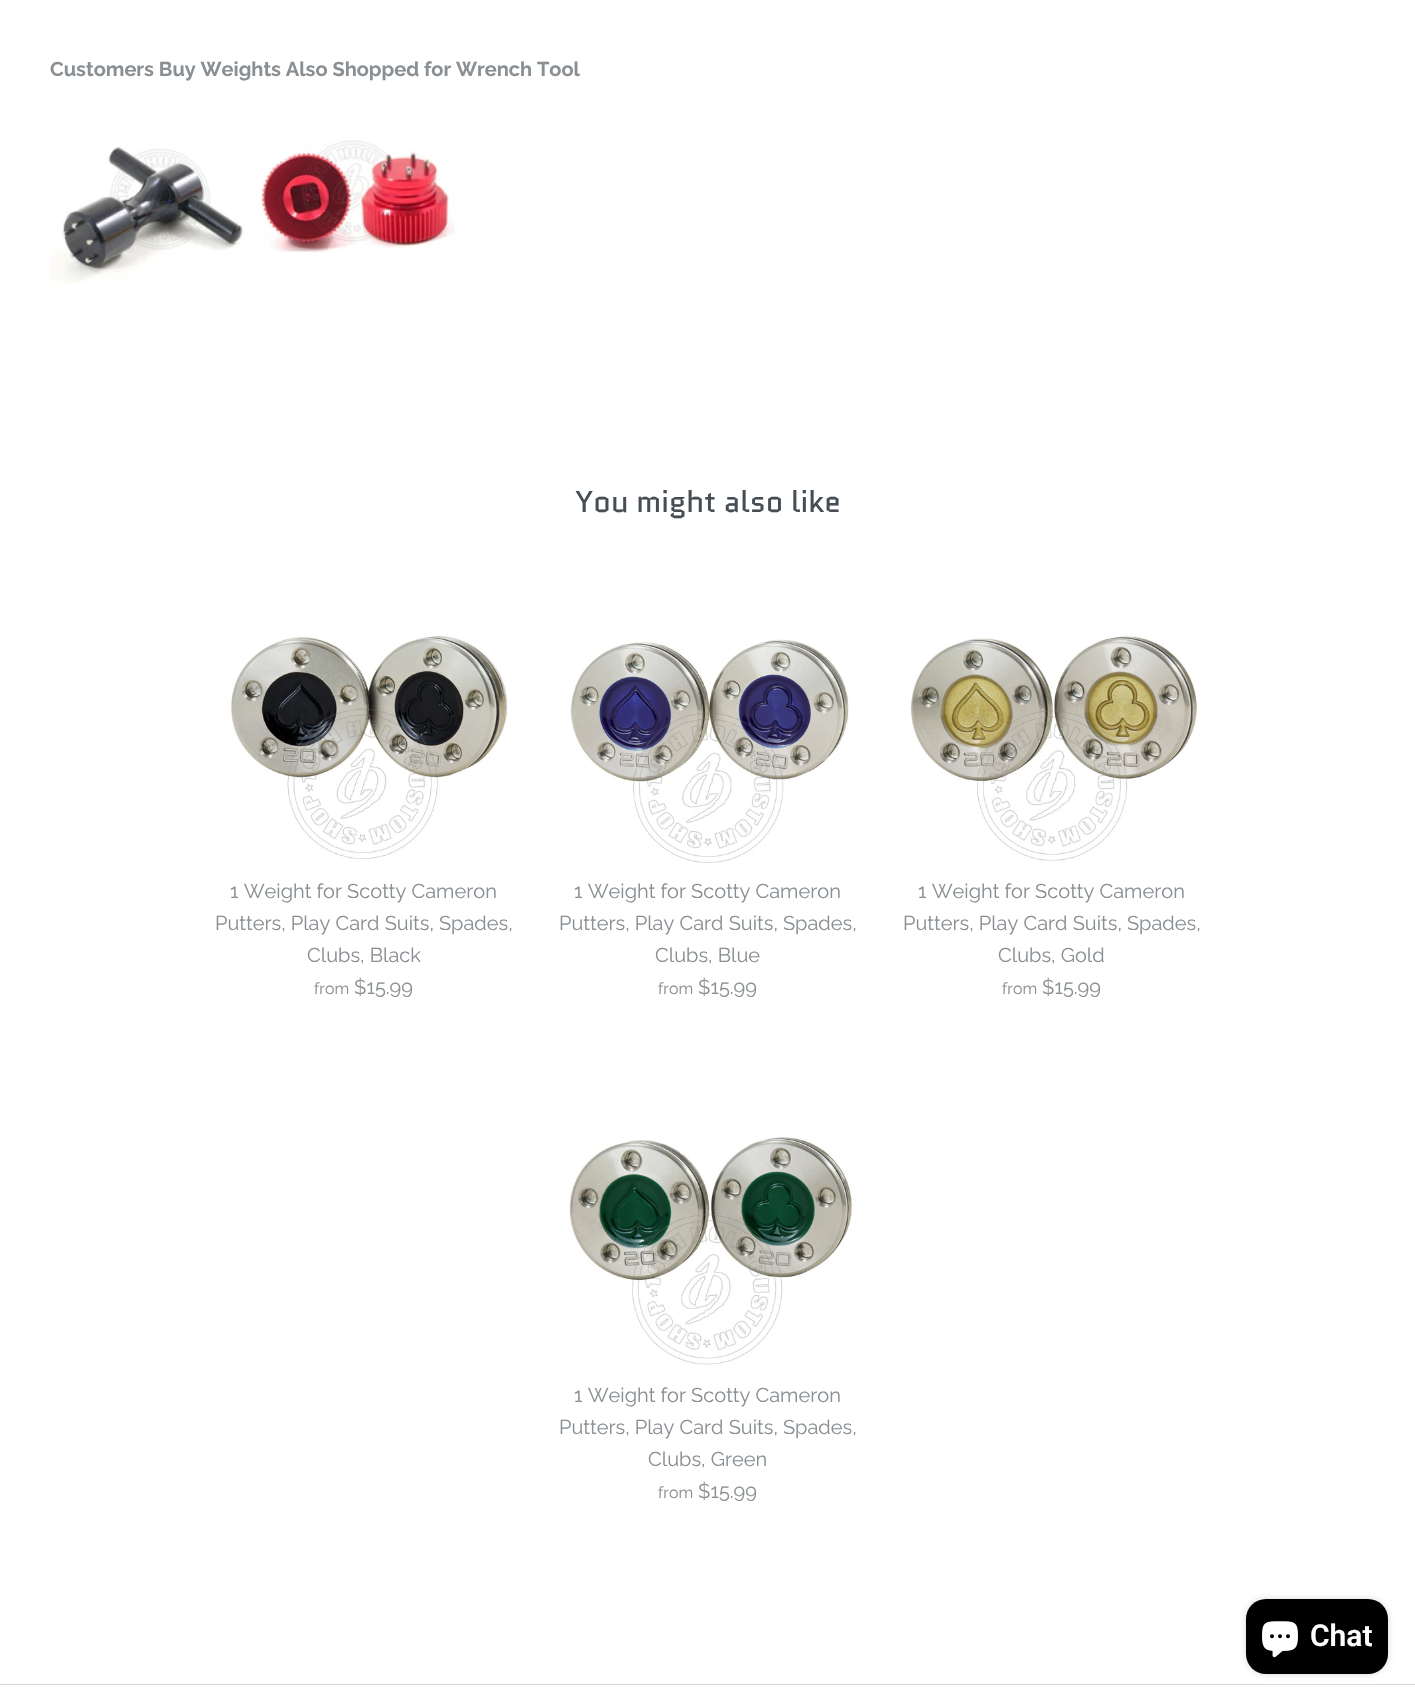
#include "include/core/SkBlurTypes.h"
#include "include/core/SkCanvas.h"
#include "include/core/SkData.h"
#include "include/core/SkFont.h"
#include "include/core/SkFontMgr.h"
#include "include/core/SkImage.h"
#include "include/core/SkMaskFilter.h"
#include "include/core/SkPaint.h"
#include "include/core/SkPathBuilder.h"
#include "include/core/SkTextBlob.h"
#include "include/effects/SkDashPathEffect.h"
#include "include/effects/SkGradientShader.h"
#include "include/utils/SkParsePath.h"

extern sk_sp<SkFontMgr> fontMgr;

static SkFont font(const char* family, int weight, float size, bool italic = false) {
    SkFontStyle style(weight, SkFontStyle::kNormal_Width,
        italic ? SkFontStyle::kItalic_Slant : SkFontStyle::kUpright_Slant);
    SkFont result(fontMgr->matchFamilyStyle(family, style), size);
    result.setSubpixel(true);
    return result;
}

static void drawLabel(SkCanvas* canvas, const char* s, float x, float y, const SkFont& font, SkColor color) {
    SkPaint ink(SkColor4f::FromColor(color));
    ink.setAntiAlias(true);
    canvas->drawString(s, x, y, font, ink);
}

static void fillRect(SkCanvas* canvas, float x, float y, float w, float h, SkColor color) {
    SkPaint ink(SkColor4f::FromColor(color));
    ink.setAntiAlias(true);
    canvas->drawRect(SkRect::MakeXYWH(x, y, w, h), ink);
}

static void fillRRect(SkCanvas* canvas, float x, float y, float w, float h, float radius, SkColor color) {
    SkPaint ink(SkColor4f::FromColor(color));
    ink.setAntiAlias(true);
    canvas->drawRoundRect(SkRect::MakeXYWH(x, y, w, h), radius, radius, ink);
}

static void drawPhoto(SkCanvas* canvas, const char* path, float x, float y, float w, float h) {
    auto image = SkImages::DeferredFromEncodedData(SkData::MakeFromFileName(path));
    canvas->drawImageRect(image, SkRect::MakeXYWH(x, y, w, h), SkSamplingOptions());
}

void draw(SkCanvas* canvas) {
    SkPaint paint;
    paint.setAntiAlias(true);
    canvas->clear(0xFFFFFFFF);
    SkFont font1 = font("Raleway", 700, 20);
    drawLabel(canvas, "Customers Buy Weights Also Shopped for Wrench Tool", 50, 76, font1, 0xFF8A8F93);
    drawPhoto(canvas, "assets/img1.png", 50, 147, 195, 137);
    drawPhoto(canvas, "assets/img2.png", 255, 140, 200, 113);
    SkFont font2 = font("Quantico", 400, 30);
    drawLabel(canvas, "You might also like", 575, 512, font2, 0xFF464E54);
    drawPhoto(canvas, "assets/img3.png", 230, 636, 278, 223);
    SkFont font3 = font("Raleway", 100, 20);
    drawLabel(canvas, "1 Weight for Scotty Cameron", 230, 898, font3, 0xFF8A8F93);
    drawLabel(canvas, "Putters, Play Card Suits, Spades,", 215, 930, font3, 0xFF8A8F93);
    drawLabel(canvas, "Clubs, Black", 307, 962, font3, 0xFF8A8F93);
    SkFont font4 = font("Raleway", 100, 16);
    drawLabel(canvas, "from", 314, 994, font4, 0xFF8A8F93);
    drawLabel(canvas, "$15.99", 354, 994, font3, 0xFF8A8F93);
    drawPhoto(canvas, "assets/img4.png", 570, 639, 279, 224);
    drawLabel(canvas, "1 Weight for Scotty Cameron", 574, 898, font3, 0xFF8A8F93);
    drawLabel(canvas, "Putters, Play Card Suits, Spades,", 559, 930, font3, 0xFF8A8F93);
    drawLabel(canvas, "Clubs, Blue", 655, 962, font3, 0xFF8A8F93);
    drawLabel(canvas, "from", 658, 994, font4, 0xFF8A8F93);
    drawLabel(canvas, "$15.99", 698, 994, font3, 0xFF8A8F93);
    drawPhoto(canvas, "assets/img5.png", 910, 636, 287, 225);
    drawLabel(canvas, "1 Weight for Scotty Cameron", 918, 898, font3, 0xFF8A8F93);
    drawLabel(canvas, "Putters, Play Card Suits, Spades,", 903, 930, font3, 0xFF8A8F93);
    drawLabel(canvas, "Clubs, Gold", 998, 962, font3, 0xFF8A8F93);
    drawLabel(canvas, "from", 1002, 994, font4, 0xFF8A8F93);
    drawLabel(canvas, "$15.99", 1042, 994, font3, 0xFF8A8F93);
    drawPhoto(canvas, "assets/img6.png", 569, 1137, 283, 228);
    drawLabel(canvas, "1 Weight for Scotty Cameron", 574, 1402, font3, 0xFF8A8F93);
    drawLabel(canvas, "Putters, Play Card Suits, Spades,", 559, 1434, font3, 0xFF8A8F93);
    drawLabel(canvas, "Clubs, Green", 648, 1466, font3, 0xFF8A8F93);
    drawLabel(canvas, "from", 658, 1498, font4, 0xFF8A8F93);
    drawLabel(canvas, "$15.99", 698, 1498, font3, 0xFF8A8F93);
    paint.setColor(0x26000000);
    paint.setMaskFilter(SkMaskFilter::MakeBlur(kNormal_SkBlurStyle, 3));
    canvas->drawRoundRect(SkRect::MakeXYWH(1246, 1599, 142, 75), 20, 20, paint);
    paint.setMaskFilter(nullptr);
    fillRRect(canvas, 1246, 1599, 142, 75, 20, 0xFF000000);
    drawPhoto(canvas, "assets/img7.png", 1262, 1621, 36, 37);
    SkFont font5 = font("Roboto", 600, 30);
    drawLabel(canvas, "Chat", 1310, 1646, font5, 0xFFFFFFFF);
    fillRect(canvas, 0, 1684, 1415, 1, 0xFFD9D9D4);
}
